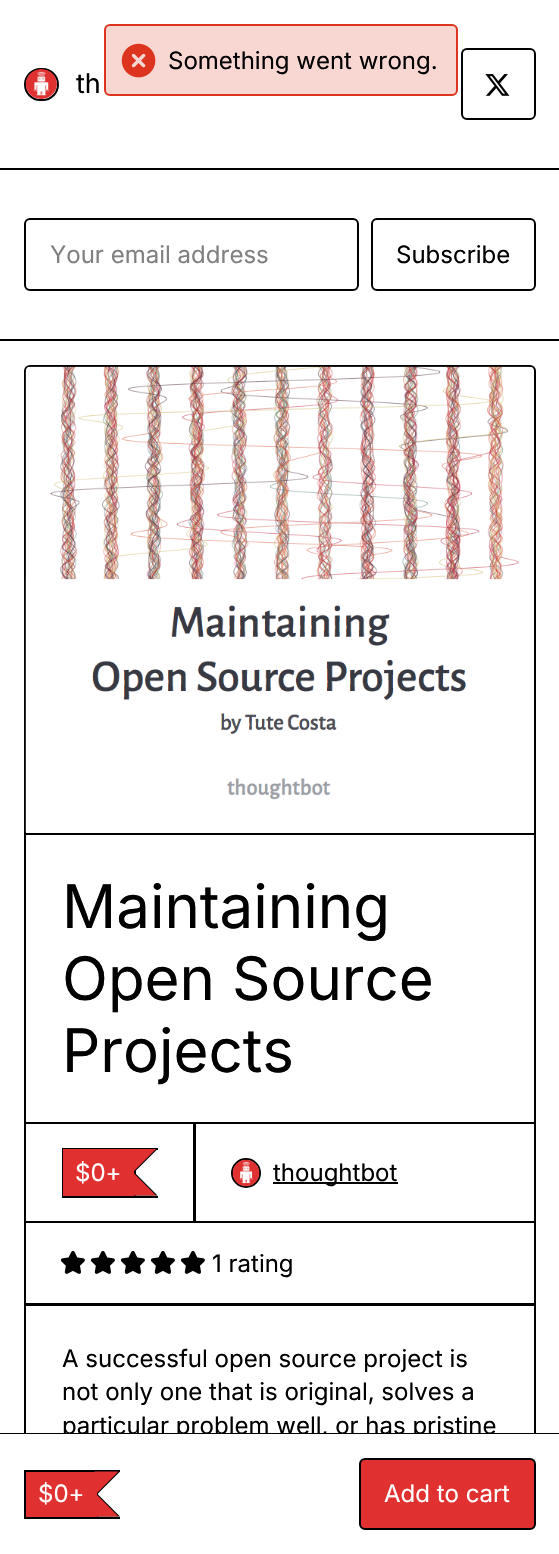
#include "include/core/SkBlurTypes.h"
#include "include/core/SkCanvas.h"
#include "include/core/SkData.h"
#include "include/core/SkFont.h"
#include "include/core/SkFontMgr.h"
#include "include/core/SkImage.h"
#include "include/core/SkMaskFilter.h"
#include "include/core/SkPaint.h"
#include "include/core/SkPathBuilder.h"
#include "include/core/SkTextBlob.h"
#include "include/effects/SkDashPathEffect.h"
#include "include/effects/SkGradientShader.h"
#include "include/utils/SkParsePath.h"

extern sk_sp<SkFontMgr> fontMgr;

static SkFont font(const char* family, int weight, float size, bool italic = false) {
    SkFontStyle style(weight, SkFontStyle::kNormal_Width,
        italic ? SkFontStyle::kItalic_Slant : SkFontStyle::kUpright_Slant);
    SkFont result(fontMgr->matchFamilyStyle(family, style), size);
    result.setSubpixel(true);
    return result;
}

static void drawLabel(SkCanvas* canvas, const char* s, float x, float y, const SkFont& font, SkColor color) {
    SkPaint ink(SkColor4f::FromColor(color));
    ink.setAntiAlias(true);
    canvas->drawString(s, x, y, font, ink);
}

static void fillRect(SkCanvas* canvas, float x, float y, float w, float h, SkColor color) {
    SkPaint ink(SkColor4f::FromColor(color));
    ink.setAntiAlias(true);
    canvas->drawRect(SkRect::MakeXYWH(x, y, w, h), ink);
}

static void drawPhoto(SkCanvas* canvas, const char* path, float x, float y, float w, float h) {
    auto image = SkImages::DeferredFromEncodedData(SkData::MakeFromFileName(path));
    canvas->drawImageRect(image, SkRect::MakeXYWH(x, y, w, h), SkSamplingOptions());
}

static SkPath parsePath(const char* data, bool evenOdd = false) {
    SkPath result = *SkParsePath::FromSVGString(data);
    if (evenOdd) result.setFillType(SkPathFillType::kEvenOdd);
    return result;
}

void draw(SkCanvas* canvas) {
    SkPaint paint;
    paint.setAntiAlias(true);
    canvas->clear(0xFFFFFFFF);
    paint.setColor(0x33DC341E);
    canvas->drawRoundRect(SkRect::MakeXYWH(105, 25, 352, 70), 5, 5, paint);
    paint.setStroke(true);
    paint.setStrokeWidth(2);
    paint.setColor(0xFFDC341E);
    canvas->drawRoundRect(SkRect::MakeXYWH(105, 25, 352, 70), 5, 5, paint);
    drawPhoto(canvas, "assets/img1.png", 121, 43, 35, 35);
    SkFont font1 = font("Inter", 400, 24);
    drawLabel(canvas, "Something went wrong.", 168, 69, font1, 0xFF000000);
    fillRect(canvas, 0, 168, 559, 2, 0xFF000000);
    paint.setColor(0xFF000000);
    canvas->drawRoundRect(SkRect::MakeXYWH(25, 69, 33, 31), 15.5f, 15.5f, paint);
    drawPhoto(canvas, "assets/img2.png", 25, 69, 32, 30);
    SkFont font2 = font("Inter", 400, 27);
    drawLabel(canvas, "th", 76, 93, font2, 0xFF000000);
    canvas->drawRoundRect(SkRect::MakeXYWH(462, 49, 73, 70), 5, 5, paint);
    drawPhoto(canvas, "assets/img3.png", 485, 74, 25, 22);
    fillRect(canvas, 0, 339, 559, 2, 0xFF000000);
    canvas->drawRoundRect(SkRect::MakeXYWH(25, 219, 333, 71), 5, 5, paint);
    drawLabel(canvas, "Your email address", 50, 263, font1, 0xFF808080);
    canvas->drawRoundRect(SkRect::MakeXYWH(372, 219, 163, 71), 5, 5, paint);
    drawLabel(canvas, "Subscribe", 396, 263, font1, 0xFF000000);
    canvas->drawRoundRect(SkRect::MakeXYWH(25, 366, 510, 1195), 5, 5, paint);
    fillRect(canvas, 26, 833, 508, 2, 0xFF000000);
    drawPhoto(canvas, "assets/img4.png", 25, 366, 509, 467);
    SkFont font3 = font("Inter", 400, 60);
    drawLabel(canvas, "Maintaining", 62, 928, font3, 0xFF000000);
    drawLabel(canvas, "Open Source", 62, 1000, font3, 0xFF000000);
    drawLabel(canvas, "Projects", 62, 1072, font3, 0xFF000000);
    canvas->drawRect(SkRect::MakeXYWH(25, 1123, 169, 99), paint);
    fillRect(canvas, 62, 1148, 96, 2, 0xFF000000);
    fillRect(canvas, 62, 1196, 96, 2, 0xFF000000);
    fillRect(canvas, 62, 1148, 2, 49, 0xFF000000);
    paint.setStroke(false);
    canvas->drawPath(parsePath("M133.5 1149H157.5L135 1171.5ZM157.5 1195.5H133.5L135 1173Z"), paint);
    fillRect(canvas, 134, 1169, 2, 27, 0xFF000000);
    paint.setColor(0xFFE03130);
    canvas->drawPath(parsePath("M132 1149H156L133.5 1171.5ZM156 1195.5H132L133.5 1173Z"), paint);
    fillRect(canvas, 132, 1149, 2, 47, 0xFFE03130);
    fillRect(canvas, 63, 1149, 69, 47, 0xFFE03130);
    drawLabel(canvas, "$0+", 75, 1181, font1, 0xFFFFFFFF);
    paint.setStroke(true);
    paint.setColor(0xFF000000);
    canvas->drawRect(SkRect::MakeXYWH(195, 1123, 340, 99), paint);
    canvas->drawCircle(246, 1173, 14, paint);
    drawPhoto(canvas, "assets/img5.png", 232, 1159, 28, 28);
    fillRect(canvas, 273, 1182, 125, 2, 0xFF000000);
    drawLabel(canvas, "thoughtbot", 273, 1181, font1, 0xFF000000);
    canvas->drawRect(SkRect::MakeXYWH(25, 1222, 510, 82), paint);
    drawPhoto(canvas, "assets/img6.png", 60, 1250, 25, 24);
    drawPhoto(canvas, "assets/img6.png", 90, 1250, 25, 24);
    drawPhoto(canvas, "assets/img6.png", 120, 1250, 25, 24);
    drawPhoto(canvas, "assets/img6.png", 150, 1250, 25, 24);
    drawPhoto(canvas, "assets/img6.png", 180, 1250, 25, 24);
    drawLabel(canvas, "1 rating", 212, 1272, font1, 0xFF000000);
    fillRect(canvas, 26, 1305, 508, 1, 0xFF000000);
    drawLabel(canvas, "A successful open source project is", 62, 1367, font1, 0xFF000000);
    drawLabel(canvas, "not only one that is original, solves a", 62, 1400, font1, 0xFF000000);
    drawLabel(canvas, "particular problem well, or has pristine", 62, 1434, font1, 0xFF000000);
    paint.setStroke(false);
    canvas->drawPath(parsePath("M0 1433V1434H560V1553V1433Z"), paint);
    fillRect(canvas, 24, 1434, 512, 120, 0xFFFFFFFF);
    fillRect(canvas, 24, 1470, 96, 2, 0xFF000000);
    fillRect(canvas, 24, 1517, 96, 2, 0xFF000000);
    fillRect(canvas, 24, 1470, 2, 48, 0xFF000000);
    fillRect(canvas, 26, 1472, 69, 45, 0xFFE03130);
    canvas->drawPath(parsePath("M96 1471.5H120L97.5 1494ZM120 1516.5H96L97.5 1494Z"), paint);
    fillRect(canvas, 97, 1492, 1, 25, 0xFF000000);
    paint.setColor(0xFFE03130);
    canvas->drawPath(parsePath("M94.5 1471.5H118.5L96 1494ZM118.5 1516.5H94.5L96 1494Z"), paint);
    fillRect(canvas, 95, 1472, 2, 45, 0xFFE03130);
    drawLabel(canvas, "$0+", 38, 1502, font1, 0xFFFFFFFF);
    canvas->drawRoundRect(SkRect::MakeXYWH(360, 1459, 175, 70), 5, 5, paint);
    paint.setStroke(true);
    paint.setColor(0xFF000000);
    canvas->drawRoundRect(SkRect::MakeXYWH(360, 1459, 175, 70), 5, 5, paint);
    drawLabel(canvas, "Add to cart", 384, 1502, font1, 0xFFFFFFFF);
}
